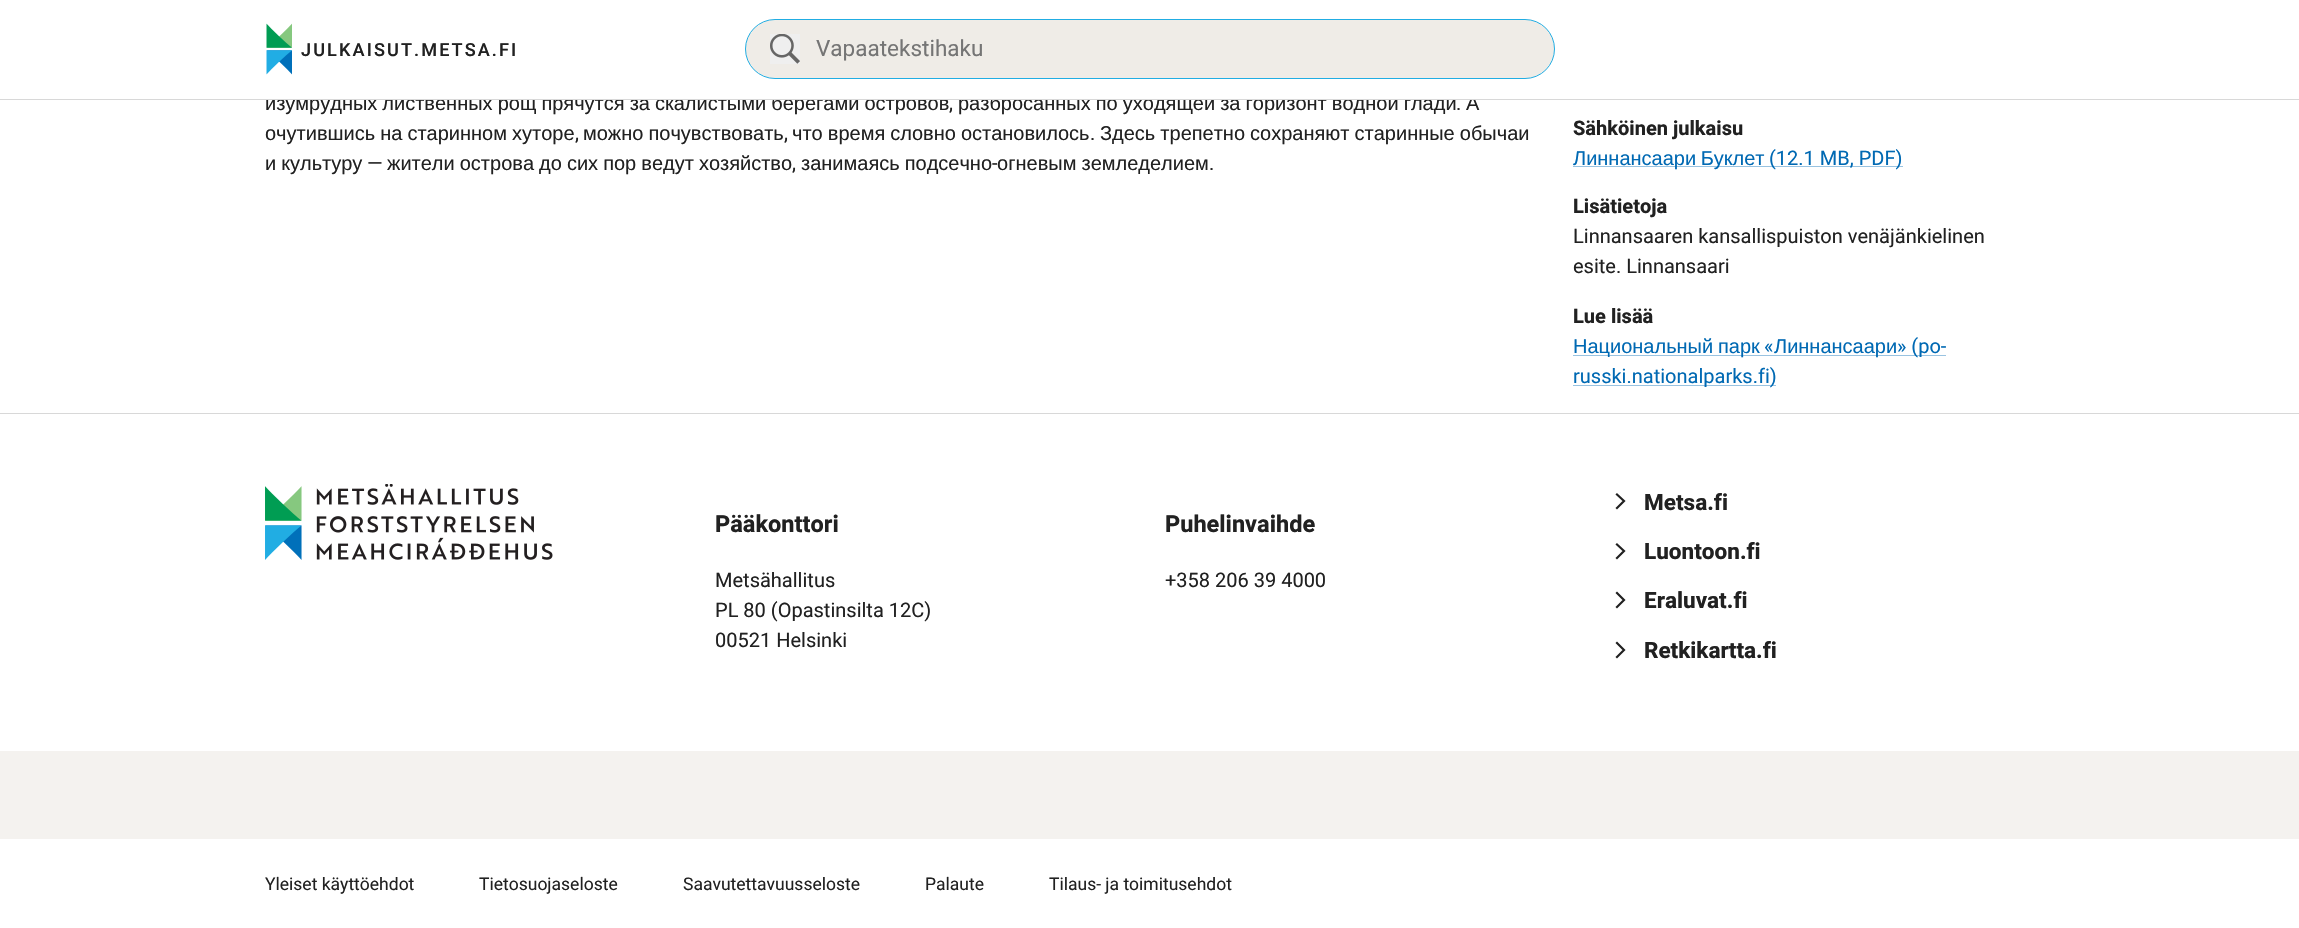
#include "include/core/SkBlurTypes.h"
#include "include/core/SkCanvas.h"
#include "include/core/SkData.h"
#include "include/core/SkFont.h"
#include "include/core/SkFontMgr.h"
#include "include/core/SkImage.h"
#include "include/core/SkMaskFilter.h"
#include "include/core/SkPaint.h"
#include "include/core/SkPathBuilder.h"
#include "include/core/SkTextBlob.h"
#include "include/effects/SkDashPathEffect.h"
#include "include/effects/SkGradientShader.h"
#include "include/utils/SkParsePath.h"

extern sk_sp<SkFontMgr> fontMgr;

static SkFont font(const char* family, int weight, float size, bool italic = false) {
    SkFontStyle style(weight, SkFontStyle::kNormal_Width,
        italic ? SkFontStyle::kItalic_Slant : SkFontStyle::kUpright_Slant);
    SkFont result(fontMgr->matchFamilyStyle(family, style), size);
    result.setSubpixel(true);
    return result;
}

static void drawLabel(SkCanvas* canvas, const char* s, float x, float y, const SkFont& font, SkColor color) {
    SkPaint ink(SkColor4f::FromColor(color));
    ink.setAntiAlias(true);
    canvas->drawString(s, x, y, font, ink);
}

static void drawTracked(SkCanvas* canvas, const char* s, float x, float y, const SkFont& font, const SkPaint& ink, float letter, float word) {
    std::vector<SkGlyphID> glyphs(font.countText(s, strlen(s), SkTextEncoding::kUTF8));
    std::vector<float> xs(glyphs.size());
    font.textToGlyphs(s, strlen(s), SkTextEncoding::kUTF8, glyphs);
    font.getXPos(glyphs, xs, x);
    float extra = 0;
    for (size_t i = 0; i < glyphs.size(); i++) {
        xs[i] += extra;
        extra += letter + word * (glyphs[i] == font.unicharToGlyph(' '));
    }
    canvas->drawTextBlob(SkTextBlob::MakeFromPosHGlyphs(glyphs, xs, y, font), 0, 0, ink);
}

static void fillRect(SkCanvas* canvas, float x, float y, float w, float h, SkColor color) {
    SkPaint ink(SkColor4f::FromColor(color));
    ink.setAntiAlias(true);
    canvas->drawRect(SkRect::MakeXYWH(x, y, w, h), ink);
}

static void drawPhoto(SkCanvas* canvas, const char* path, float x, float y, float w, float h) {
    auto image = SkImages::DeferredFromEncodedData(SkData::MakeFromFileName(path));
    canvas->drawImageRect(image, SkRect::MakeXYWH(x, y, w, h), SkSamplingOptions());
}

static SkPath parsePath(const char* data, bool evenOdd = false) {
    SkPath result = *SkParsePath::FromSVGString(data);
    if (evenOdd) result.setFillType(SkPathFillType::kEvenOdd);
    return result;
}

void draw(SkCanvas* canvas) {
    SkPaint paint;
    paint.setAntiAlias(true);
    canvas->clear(0xFFFFFFFF);
    SkFont font1 = font("Liberation Sans", 400, 20);
    paint.setColor(0xFF212121);
    drawTracked(canvas, "изумрудных лиственных рощ прячутся за скалистыми берегами островов", 265, 110, font1, paint, 0, -0.5f);
    drawTracked(canvas, "разбросанных по уходящей за горизонт водной глади", 958, 110, font1, paint, 0, -0.5f);
    drawLabel(canvas, "А", 1466, 110, font1, 0xFF212121);
    fillRect(canvas, 773, 95, 702, 4, 0xFFFFFFFF);
    fillRect(canvas, 0, 99, 2299, 1, 0xFFD8D8D8);
    drawPhoto(canvas, "assets/img1.png", 266, 23, 26, 52);
    SkFont font2 = font("Heebo", 500, 18.1f);
    drawTracked(canvas, "JULKAISUT.METSA.FI", 301, 56, font2, paint, 2.1f, 0);
    paint.setColor(0xFFEFECE7);
    canvas->drawRoundRect(SkRect::MakeXYWH(745.5f, 19.5f, 809, 59), 29.5f, 29.5f, paint);
    paint.setStroke(true);
    paint.setStrokeWidth(1);
    paint.setColor(0xFF21ADE3);
    canvas->drawRoundRect(SkRect::MakeXYWH(745.5f, 19.5f, 809, 59), 29.5f, 29.5f, paint);
    fillRect(canvas, 770, 34, 30, 30, 0xFFEFEFEF);
    drawPhoto(canvas, "assets/img2.png", 770, 34, 30, 30);
    SkFont font3 = font("Heebo", 400, 22.5f);
    drawLabel(canvas, "Vapaatekstihaku", 816, 56, font3, 0xFF757575);
    SkFont font4 = font("Heebo", 400, 20);
    drawLabel(canvas, ",", 949, 110, font4, 0xFF212121);
    drawLabel(canvas, ".", 1456, 110, font4, 0xFF212121);
    paint.setStroke(false);
    paint.setColor(0xFF212121);
    drawTracked(canvas, "очутившись на старинном хуторе", 265, 140, font1, paint, 0, -0.5f);
    drawLabel(canvas, ",", 575, 140, font4, 0xFF212121);
    drawTracked(canvas, "можно почувствовать", 583, 140, font1, paint, 0, -0.5f);
    drawLabel(canvas, ",", 784, 140, font4, 0xFF212121);
    drawTracked(canvas, "что время словно остановилось", 792, 140, font1, paint, 0, -0.5f);
    drawLabel(canvas, ".", 1090, 140, font4, 0xFF212121);
    drawTracked(canvas, "Здесь трепетно сохраняют старинные обычаи", 1100, 140, font1, paint, 0, -0.5f);
    drawTracked(canvas, "и культуру", 265, 170, font1, paint, 0, -0.5f);
    drawLabel(canvas, "—", 367, 170, font4, 0xFF212121);
    drawTracked(canvas, "жители острова до сих пор ведут хозяйство", 387, 170, font1, paint, 0, -0.5f);
    drawTracked(canvas, "занимаясь подсечно огневым земледелием", 801, 170, font1, paint, 0, -0.5f);
    drawLabel(canvas, "-", 992, 170, font4, 0xFF212121);
    drawLabel(canvas, ",", 792, 170, font4, 0xFF212121);
    drawLabel(canvas, ".", 1209, 170, font4, 0xFF212121);
    SkFont font5 = font("Heebo", 700, 20);
    drawLabel(canvas, "Sähköinen julkaisu", 1573, 135, font5, 0xFF212121);
    fillRect(canvas, 1573, 166, 330, 1, 0xFF99C3E1);
    paint.setColor(0xFF0069B3);
    drawTracked(canvas, "Линнансаари Буклет", 1573, 165, font1, paint, 0, -1);
    drawLabel(canvas, "(12.1 MB, PDF)", 1769, 165, font4, 0xFF0069B3);
    drawLabel(canvas, "Lisätietoja", 1573, 213, font5, 0xFF212121);
    drawLabel(canvas, "Linnansaaren kansallispuiston venäjänkielinen", 1573, 243, font4, 0xFF212121);
    drawLabel(canvas, "esite. Linnansaari", 1573, 273, font4, 0xFF212121);
    drawLabel(canvas, "Lue lisää", 1573, 323, font5, 0xFF212121);
    fillRect(canvas, 1573, 355, 373, 1, 0xFF99C3E1);
    drawLabel(canvas, "Национальный", 1573, 353, font1, 0xFF0069B3);
    drawLabel(canvas, "парк", 1718, 353, font1, 0xFF0069B3);
    drawLabel(canvas, "«", 1764, 353, font4, 0xFF0069B3);
    drawLabel(canvas, "Линнансаари", 1774, 353, font1, 0xFF0069B3);
    drawLabel(canvas, "» (po-", 1897, 353, font4, 0xFF0069B3);
    fillRect(canvas, 1573, 385, 203, 1, 0xFF99C3E1);
    drawLabel(canvas, "russki.nationalparks.fi)", 1573, 383, font4, 0xFF0069B3);
    fillRect(canvas, 0, 413, 2299, 1, 0xFFD8D8D8);
    drawPhoto(canvas, "assets/img3.png", 265, 484, 288, 76);
    SkFont font6 = font("Heebo", 700, 23.5f);
    drawLabel(canvas, "Pääkonttori", 715, 532, font6, 0xFF212121);
    drawLabel(canvas, "Metsähallitus", 715, 587, font4, 0xFF212121);
    drawLabel(canvas, "PL 80 (Opastinsilta 12C)", 715, 617, font4, 0xFF212121);
    drawLabel(canvas, "00521 Helsinki", 715, 647, font4, 0xFF212121);
    drawLabel(canvas, "Puhelinvaihde", 1165, 532, font6, 0xFF212121);
    drawLabel(canvas, "+358 206 39 4000", 1165, 587, font4, 0xFF212121);
    paint.setStroke(true);
    paint.setStrokeWidth(2.2f);
    paint.setStrokeCap(SkPaint::kSquare_Cap);
    paint.setColor(0xFF212121);
    canvas->drawPath(parsePath("M1617 508L1624 501L1617 494.5"), paint);
    SkFont font7 = font("Heebo", 700, 22.5f);
    drawLabel(canvas, "Metsa.fi", 1644, 510, font7, 0xFF212121);
    canvas->drawPath(parsePath("M1617 558L1624 551L1617 544.5"), paint);
    drawLabel(canvas, "Luontoon.fi", 1644, 559, font7, 0xFF212121);
    canvas->drawPath(parsePath("M1617 607L1624 600L1617 593"), paint);
    drawLabel(canvas, "Eraluvat.fi", 1644, 608, font7, 0xFF212121);
    canvas->drawPath(parsePath("M1617 657L1624 650L1617 643"), paint);
    drawLabel(canvas, "Retkikartta.fi", 1644, 658, font7, 0xFF212121);
    fillRect(canvas, 0, 751, 2299, 88, 0xFFF4F2EF);
    SkFont font8 = font("Heebo", 400, 17.5f);
    drawLabel(canvas, "Yleiset käyttöehdot", 265, 890, font8, 0xFF212121);
    drawLabel(canvas, "Tietosuojaseloste", 479, 890, font8, 0xFF212121);
    drawLabel(canvas, "Saavutettavuusseloste", 683, 890, font8, 0xFF212121);
    drawLabel(canvas, "Palaute", 925, 890, font8, 0xFF212121);
    drawLabel(canvas, "Tilaus- ja toimitusehdot", 1049, 890, font8, 0xFF212121);
}
